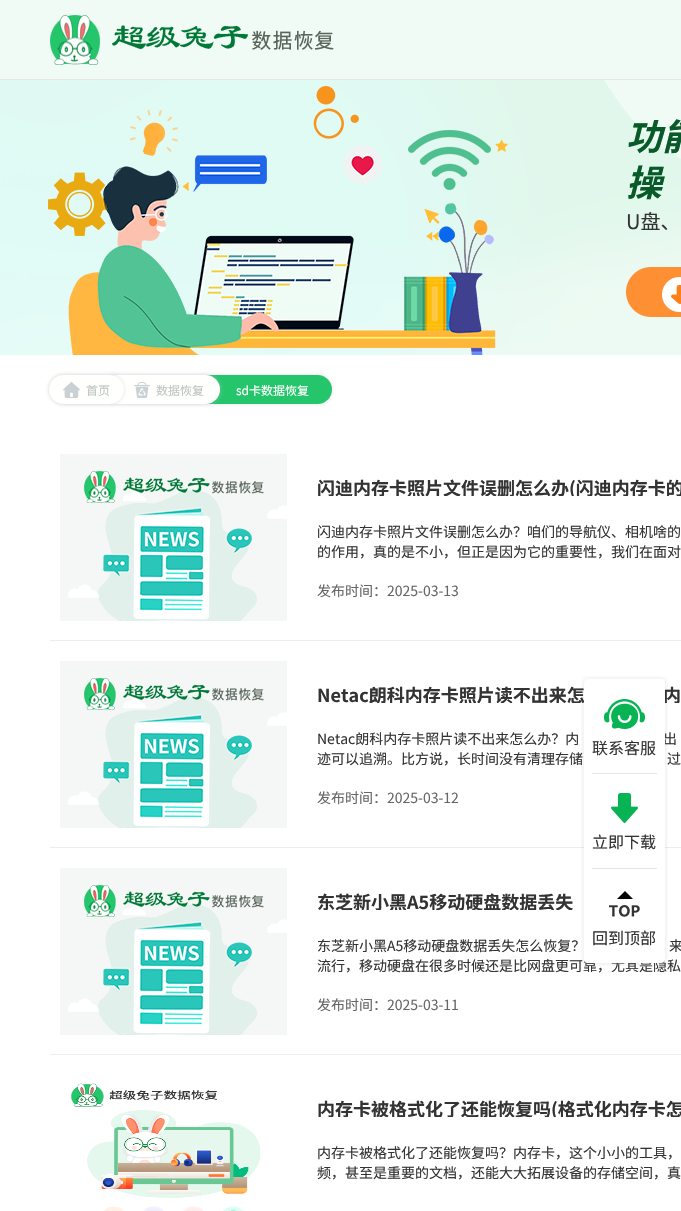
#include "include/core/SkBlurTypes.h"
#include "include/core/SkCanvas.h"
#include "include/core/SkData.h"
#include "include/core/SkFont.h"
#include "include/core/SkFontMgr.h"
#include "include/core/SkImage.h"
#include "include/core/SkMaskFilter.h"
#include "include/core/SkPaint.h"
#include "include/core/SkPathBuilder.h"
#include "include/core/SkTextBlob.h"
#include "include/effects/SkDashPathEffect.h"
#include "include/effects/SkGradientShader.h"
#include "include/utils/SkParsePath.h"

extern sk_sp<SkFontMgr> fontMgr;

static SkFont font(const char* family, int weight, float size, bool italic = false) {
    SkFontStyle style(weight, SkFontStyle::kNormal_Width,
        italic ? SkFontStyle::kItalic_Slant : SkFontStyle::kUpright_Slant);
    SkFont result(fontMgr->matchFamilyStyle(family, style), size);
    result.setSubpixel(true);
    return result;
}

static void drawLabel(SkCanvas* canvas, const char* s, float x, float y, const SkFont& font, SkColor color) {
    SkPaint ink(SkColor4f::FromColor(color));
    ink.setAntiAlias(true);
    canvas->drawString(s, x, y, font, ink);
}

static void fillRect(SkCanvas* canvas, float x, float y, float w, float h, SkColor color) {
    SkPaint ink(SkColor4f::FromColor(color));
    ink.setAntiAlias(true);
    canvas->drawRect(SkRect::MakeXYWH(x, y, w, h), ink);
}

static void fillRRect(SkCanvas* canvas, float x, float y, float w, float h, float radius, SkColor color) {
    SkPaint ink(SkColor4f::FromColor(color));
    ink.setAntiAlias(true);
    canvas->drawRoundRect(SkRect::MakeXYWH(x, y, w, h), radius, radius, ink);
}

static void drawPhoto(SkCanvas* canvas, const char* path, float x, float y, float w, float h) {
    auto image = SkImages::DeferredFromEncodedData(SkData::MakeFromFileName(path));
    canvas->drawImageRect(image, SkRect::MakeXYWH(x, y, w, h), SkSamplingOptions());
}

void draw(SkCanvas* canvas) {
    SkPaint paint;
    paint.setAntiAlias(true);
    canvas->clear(0xFFFFFFFF);
    fillRect(canvas, 0, 0, 681, 79, 0xFFF0FBF5);
    fillRect(canvas, 0, 79, 681, 1, 0xFFE7E7E7);
    drawPhoto(canvas, "assets/img1.png", 50, 15, 284, 50);
    drawPhoto(canvas, "assets/img2.png", 0, 80, 681, 275);
    drawPhoto(canvas, "assets/img3.png", 130, 110, 48, 46);
    drawPhoto(canvas, "assets/img4.png", 408, 130, 83, 60);
    SkFont font1 = font("Noto Sans SC", 700, 36, true);
    drawLabel(canvas, "功能", 626, 150, font1, 0xFF085A29);
    drawLabel(canvas, "操", 626, 196, font1, 0xFF085A29);
    SkFont font2 = font("Noto Sans SC", 400, 20);
    drawLabel(canvas, "U盘、", 626, 229, font2, 0xFF333333);
    drawPhoto(canvas, "assets/img5.png", 626, 267, 55, 50);
    drawPhoto(canvas, "assets/img6.png", 662, 277, 19, 35);
    paint.setColor(0x80C5C5C5);
    paint.setMaskFilter(SkMaskFilter::MakeBlur(kNormal_SkBlurStyle, 2));
    canvas->drawRoundRect(SkRect::MakeXYWH(50, 375, 282, 29), 14.5f, 14.5f, paint);
    paint.setMaskFilter(nullptr);
    fillRRect(canvas, 194, 375, 138, 29, 14.5f, 0xFF25C56C);
    paint.setMaskFilter(SkMaskFilter::MakeBlur(kNormal_SkBlurStyle, 2));
    canvas->drawRoundRect(SkRect::MakeXYWH(103, 375, 117, 29), 14.5f, 14.5f, paint);
    paint.setMaskFilter(nullptr);
    fillRRect(canvas, 103, 375, 117, 29, 14.5f, 0xFFFFFFFD);
    paint.setMaskFilter(SkMaskFilter::MakeBlur(kNormal_SkBlurStyle, 2));
    canvas->drawRoundRect(SkRect::MakeXYWH(49, 375, 75, 29), 14.5f, 14.5f, paint);
    paint.setMaskFilter(nullptr);
    fillRRect(canvas, 49, 375, 75, 29, 14.5f, 0xFFFFFFFD);
    drawPhoto(canvas, "assets/img7.png", 63, 382, 17, 16);
    SkFont font3 = font("Noto Sans SC", 400, 12);
    drawLabel(canvas, "首页", 86, 395, font3, 0xFFBFC6C3);
    drawPhoto(canvas, "assets/img8.png", 134, 382, 16, 16);
    drawLabel(canvas, "数据恢复", 156, 395, font3, 0xFFBFC6C3);
    drawLabel(canvas, "sd卡数据恢复", 236, 395, font3, 0xFFFFFFFF);
    fillRect(canvas, 50, 640, 631, 1, 0xFFEDEDED);
    drawPhoto(canvas, "assets/img9.png", 60, 454, 227, 167);
    canvas->save();
    canvas->clipRect(SkRect::MakeXYWH(317, 478, 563, 18));
    SkFont font4 = font("Noto Sans SC", 700, 18);
    drawLabel(canvas, "闪迪内存卡照片文件误删怎么办(闪迪内存卡的", 317, 495, font4, 0xFF333333);
    canvas->restore();
    SkFont font5 = font("Noto Sans SC", 400, 14);
    drawLabel(canvas, "闪迪内存卡照片文件误删怎么办？咱们的导航仪、相机啥的", 317, 537, font5, 0xFF333333);
    drawLabel(canvas, "的作用，真的是不小，但正是因为它的重要性，我们在面对", 317, 557, font5, 0xFF333333);
    drawLabel(canvas, "发布时间：2025-03-13", 317, 596, font5, 0xFF666666);
    fillRect(canvas, 50, 847, 631, 1, 0xFFEDEDED);
    drawPhoto(canvas, "assets/img9.png", 60, 661, 227, 167);
    canvas->save();
    canvas->clipRect(SkRect::MakeXYWH(317, 685, 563, 18));
    drawLabel(canvas, "Netac朗科内存卡照片读不出来怎", 317, 702, font4, 0xFF333333);
    drawLabel(canvas, "内", 663, 702, font4, 0xFF333333);
    canvas->restore();
    drawLabel(canvas, "Netac朗科内存卡照片读不出来怎么办？内", 317, 744, font5, 0xFF333333);
    drawLabel(canvas, "出", 663, 744, font5, 0xFF333333);
    drawLabel(canvas, "迹可以追溯。比方说，长时间没有清理存储", 317, 764, font5, 0xFF333333);
    drawLabel(canvas, "过", 667, 764, font5, 0xFF333333);
    drawLabel(canvas, "发布时间：2025-03-12", 317, 803, font5, 0xFF666666);
    fillRect(canvas, 50, 1054, 631, 1, 0xFFEDEDED);
    drawPhoto(canvas, "assets/img9.png", 60, 868, 227, 167);
    canvas->save();
    canvas->clipRect(SkRect::MakeXYWH(317, 892, 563, 18));
    drawLabel(canvas, "东芝新小黑A5移动硬盘数据丢失", 317, 909, font4, 0xFF333333);
    canvas->restore();
    drawLabel(canvas, "东芝新小黑A5移动硬盘数据丢失怎么恢复？", 317, 951, font5, 0xFF333333);
    drawLabel(canvas, "来", 669, 951, font5, 0xFF333333);
    drawLabel(canvas, "流行，移动硬盘在很多时候还是比网盘更可靠，尤其是隐私", 317, 971, font5, 0xFF333333);
    drawLabel(canvas, "发布时间：2025-03-11", 317, 1010, font5, 0xFF666666);
    drawPhoto(canvas, "assets/img10.png", 60, 1075, 227, 136);
    canvas->save();
    canvas->clipRect(SkRect::MakeXYWH(317, 1099, 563, 18));
    drawLabel(canvas, "内存卡被格式化了还能恢复吗(格式化内存卡怎", 317, 1116, font4, 0xFF333333);
    canvas->restore();
    drawLabel(canvas, "内存卡被格式化了还能恢复吗？内存卡，这个小小的工具，", 317, 1158, font5, 0xFF333333);
    drawLabel(canvas, "频，甚至是重要的文档，还能大大拓展设备的存储空间，真", 317, 1178, font5, 0xFF333333);
    drawPhoto(canvas, "assets/img11.png", 581, 676, 87, 290);
    drawPhoto(canvas, "assets/img12.png", 604, 699, 41, 30);
    SkFont font6 = font("Noto Sans SC", 400, 16);
    drawLabel(canvas, "联系客服", 592, 754, font6, 0xFF333333);
    drawPhoto(canvas, "assets/img13.png", 611, 793, 27, 30);
    drawLabel(canvas, "立即下载", 592, 848, font6, 0xFF333333);
    drawPhoto(canvas, "assets/img14.png", 609, 891, 31, 26);
    drawLabel(canvas, "回到顶部", 592, 944, font6, 0xFF333333);
}
